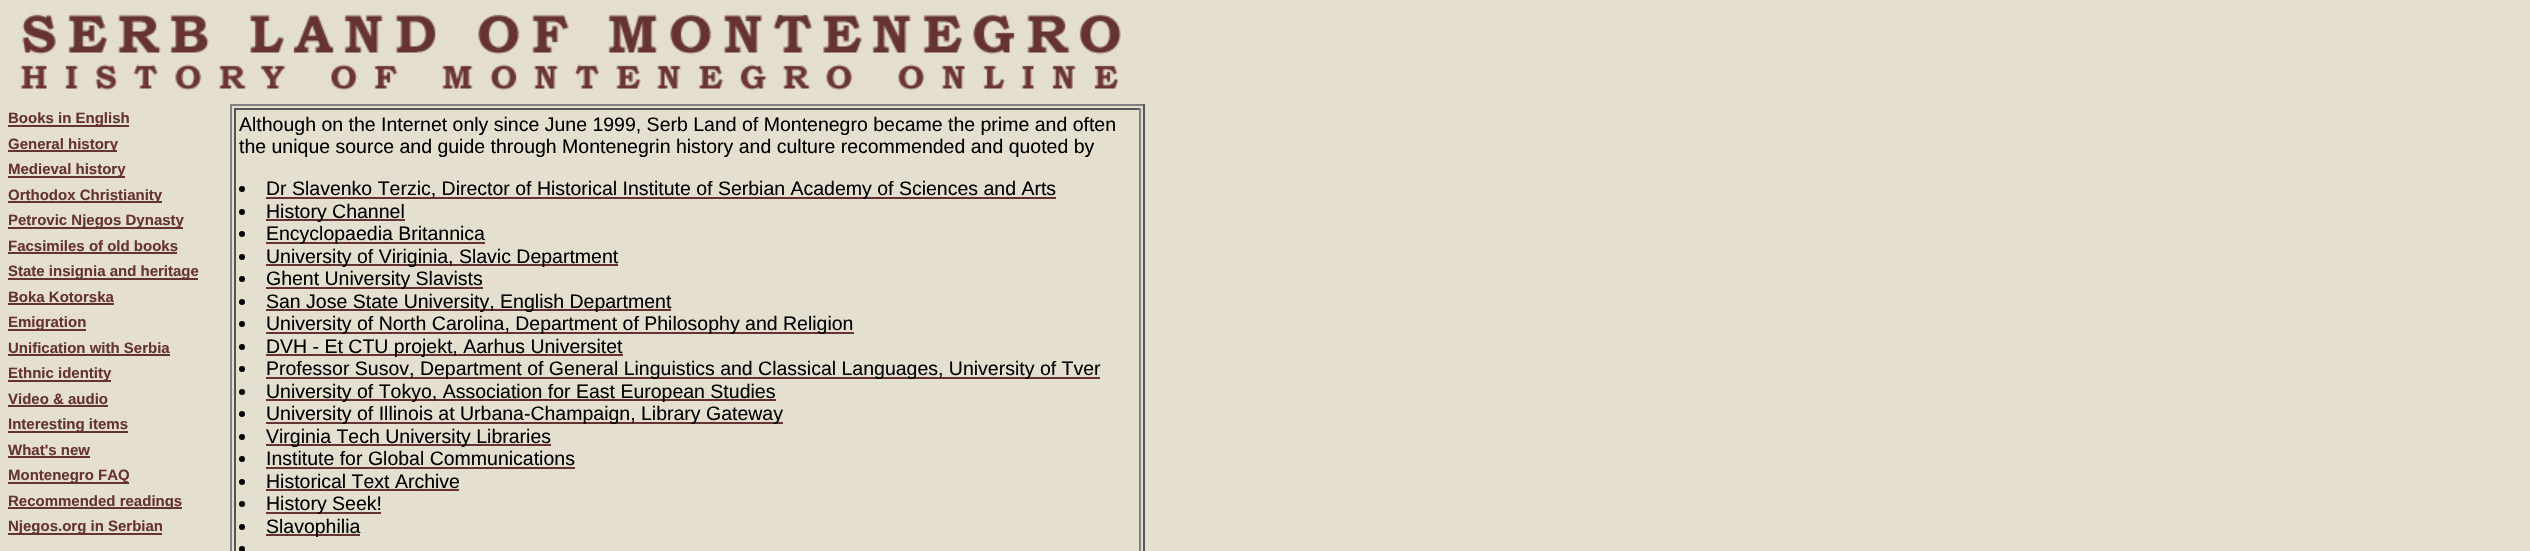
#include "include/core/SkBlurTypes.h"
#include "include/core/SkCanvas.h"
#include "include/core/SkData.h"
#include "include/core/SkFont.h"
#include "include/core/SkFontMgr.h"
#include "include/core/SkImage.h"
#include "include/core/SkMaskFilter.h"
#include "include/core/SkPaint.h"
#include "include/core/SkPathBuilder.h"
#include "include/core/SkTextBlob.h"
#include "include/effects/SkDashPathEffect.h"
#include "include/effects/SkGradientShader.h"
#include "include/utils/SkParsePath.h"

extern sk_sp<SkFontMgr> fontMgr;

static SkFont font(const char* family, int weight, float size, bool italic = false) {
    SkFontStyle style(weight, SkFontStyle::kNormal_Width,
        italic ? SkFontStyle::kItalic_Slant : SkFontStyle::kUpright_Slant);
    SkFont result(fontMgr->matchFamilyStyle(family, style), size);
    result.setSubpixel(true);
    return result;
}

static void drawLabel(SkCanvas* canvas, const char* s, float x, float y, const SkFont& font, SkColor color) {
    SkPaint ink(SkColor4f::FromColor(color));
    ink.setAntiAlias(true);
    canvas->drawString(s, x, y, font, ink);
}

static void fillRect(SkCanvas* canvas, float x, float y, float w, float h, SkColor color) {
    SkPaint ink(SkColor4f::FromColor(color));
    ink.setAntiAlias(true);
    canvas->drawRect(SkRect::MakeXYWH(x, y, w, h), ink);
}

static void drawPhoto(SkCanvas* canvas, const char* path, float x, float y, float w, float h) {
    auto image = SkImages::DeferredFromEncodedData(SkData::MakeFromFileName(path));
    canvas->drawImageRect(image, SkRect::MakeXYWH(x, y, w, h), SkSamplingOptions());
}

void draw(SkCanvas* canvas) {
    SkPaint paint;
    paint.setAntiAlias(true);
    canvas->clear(0xFFE4DFCE);
    drawPhoto(canvas, "assets/img1.png", 17, 5, 1104, 90);
    fillRect(canvas, 8, 125, 121, 2, 0xFF663333);
    SkFont font1 = font("Liberation Sans", 700, 15);
    drawLabel(canvas, "Books in English", 8, 123, font1, 0xFF663333);
    fillRect(canvas, 8, 150, 109, 2, 0xFF663333);
    drawLabel(canvas, "General history", 8, 149, font1, 0xFF663333);
    fillRect(canvas, 8, 176, 117, 2, 0xFF663333);
    drawLabel(canvas, "Medieval history", 8, 174, font1, 0xFF663333);
    fillRect(canvas, 8, 201, 154, 2, 0xFF663333);
    drawLabel(canvas, "Orthodox Christianity", 8, 200, font1, 0xFF663333);
    fillRect(canvas, 8, 227, 175, 2, 0xFF663333);
    drawLabel(canvas, "Petrovic Njegos Dynasty", 8, 225, font1, 0xFF663333);
    drawLabel(canvas, "Facsimiles of old books", 8, 251, font1, 0xFF663333);
    fillRect(canvas, 8, 252, 169, 2, 0xFF663333);
    fillRect(canvas, 8, 278, 190, 2, 0xFF663333);
    drawLabel(canvas, "State insignia and heritage", 8, 276, font1, 0xFF663333);
    drawLabel(canvas, "Boka Kotorska", 8, 302, font1, 0xFF663333);
    fillRect(canvas, 8, 303, 106, 2, 0xFF663333);
    fillRect(canvas, 8, 329, 78, 2, 0xFF663333);
    drawLabel(canvas, "Emigration", 8, 327, font1, 0xFF663333);
    drawLabel(canvas, "Unification with Serbia", 8, 353, font1, 0xFF663333);
    fillRect(canvas, 8, 354, 162, 2, 0xFF663333);
    fillRect(canvas, 8, 380, 103, 2, 0xFF663333);
    drawLabel(canvas, "Ethnic identity", 8, 378, font1, 0xFF663333);
    drawLabel(canvas, "Video & audio", 8, 404, font1, 0xFF663333);
    fillRect(canvas, 8, 405, 100, 2, 0xFF663333);
    fillRect(canvas, 8, 431, 120, 2, 0xFF663333);
    drawLabel(canvas, "Interesting items", 8, 429, font1, 0xFF663333);
    drawLabel(canvas, "What's new", 8, 455, font1, 0xFF663333);
    fillRect(canvas, 8, 456, 82, 2, 0xFF663333);
    fillRect(canvas, 8, 482, 121, 2, 0xFF663333);
    drawLabel(canvas, "Montenegro FAQ", 8, 480, font1, 0xFF663333);
    fillRect(canvas, 8, 507, 174, 2, 0xFF663333);
    drawLabel(canvas, "Recommended readings", 8, 506, font1, 0xFF663333);
    fillRect(canvas, 8, 533, 154, 2, 0xFF663333);
    drawLabel(canvas, "Njegos.org in Serbian", 8, 531, font1, 0xFF663333);
    fillRect(canvas, 230, 104, 915, 2, 0xFF808080);
    fillRect(canvas, 1143, 104, 2, 447, 0xFF555555);
    fillRect(canvas, 230, 104, 2, 447, 0xFF808080);
    fillRect(canvas, 234, 108, 906, 2, 0xFF555555);
    fillRect(canvas, 1139, 108, 2, 443, 0xFF808080);
    fillRect(canvas, 234, 108, 2, 443, 0xFF555555);
    SkFont font2 = font("Liberation Sans", 400, 19.5f);
    drawLabel(canvas, "Although on the Internet only since June 1999, Serb Land of Montenegro became the prime and often", 239, 131, font2, 0xFF000000);
    drawLabel(canvas, "the unique source and guide through Montenegrin history and culture recommended and quoted by", 239, 153, font2, 0xFF000000);
    paint.setColor(0xFF000000);
    canvas->drawCircle(242, 189, 3, paint);
    fillRect(canvas, 266, 197, 790, 2, 0xFF663333);
    drawLabel(canvas, "Dr Slavenko Terzic, Director of Historical Institute of Serbian Academy of Sciences and Arts", 266, 195, font2, 0xFF000000);
    canvas->drawCircle(242, 212, 3, paint);
    fillRect(canvas, 266, 219, 139, 2, 0xFF663333);
    drawLabel(canvas, "History Channel", 266, 218, font2, 0xFF000000);
    canvas->drawCircle(242, 234, 3, paint);
    fillRect(canvas, 266, 242, 219, 2, 0xFF663333);
    drawLabel(canvas, "Encyclopaedia Britannica", 266, 240, font2, 0xFF000000);
    canvas->drawCircle(242, 257, 3, paint);
    fillRect(canvas, 266, 264, 352, 2, 0xFF663333);
    drawLabel(canvas, "University of Viriginia, Slavic Department", 266, 263, font2, 0xFF000000);
    canvas->drawCircle(242, 279, 3, paint);
    fillRect(canvas, 266, 287, 217, 2, 0xFF663333);
    drawLabel(canvas, "Ghent University Slavists", 266, 285, font2, 0xFF000000);
    canvas->drawCircle(242, 302, 3, paint);
    fillRect(canvas, 266, 309, 405, 2, 0xFF663333);
    drawLabel(canvas, "San Jose State University, English Department", 266, 308, font2, 0xFF000000);
    canvas->drawCircle(242, 324, 3, paint);
    fillRect(canvas, 266, 332, 588, 2, 0xFF663333);
    drawLabel(canvas, "University of North Carolina, Department of Philosophy and Religion", 266, 330, font2, 0xFF000000);
    canvas->drawCircle(242, 347, 3, paint);
    fillRect(canvas, 266, 354, 357, 2, 0xFF663333);
    drawLabel(canvas, "DVH - Et CTU projekt, Aarhus Universitet", 266, 353, font2, 0xFF000000);
    canvas->drawCircle(242, 369, 3, paint);
    fillRect(canvas, 266, 377, 834, 2, 0xFF663333);
    drawLabel(canvas, "Professor Susov, Department of General Linguistics and Classical Languages, University of Tver", 266, 375, font2, 0xFF000000);
    canvas->drawCircle(242, 392, 3, paint);
    fillRect(canvas, 266, 399, 510, 2, 0xFF663333);
    drawLabel(canvas, "University of Tokyo, Association for East European Studies", 266, 398, font2, 0xFF000000);
    canvas->drawCircle(242, 414, 3, paint);
    fillRect(canvas, 266, 422, 517, 2, 0xFF663333);
    drawLabel(canvas, "University of Illinois at Urbana-Champaign, Library Gateway", 266, 420, font2, 0xFF000000);
    canvas->drawCircle(242, 437, 3, paint);
    fillRect(canvas, 266, 444, 285, 2, 0xFF663333);
    drawLabel(canvas, "Virginia Tech University Libraries", 266, 443, font2, 0xFF000000);
    canvas->drawCircle(242, 459, 3, paint);
    drawLabel(canvas, "Institute for Global Communications", 266, 465, font2, 0xFF000000);
    fillRect(canvas, 266, 467, 309, 2, 0xFF663333);
    canvas->drawCircle(242, 482, 3, paint);
    drawLabel(canvas, "Historical Text Archive", 266, 488, font2, 0xFF000000);
    fillRect(canvas, 266, 489, 193, 2, 0xFF663333);
    canvas->drawCircle(242, 504, 3, paint);
    fillRect(canvas, 266, 512, 115, 2, 0xFF663333);
    drawLabel(canvas, "History Seek!", 266, 510, font2, 0xFF000000);
    canvas->drawCircle(242, 527, 3, paint);
    fillRect(canvas, 266, 534, 94, 2, 0xFF663333);
    drawLabel(canvas, "Slavophilia", 266, 533, font2, 0xFF000000);
    canvas->drawCircle(242, 549, 3, paint);
}
